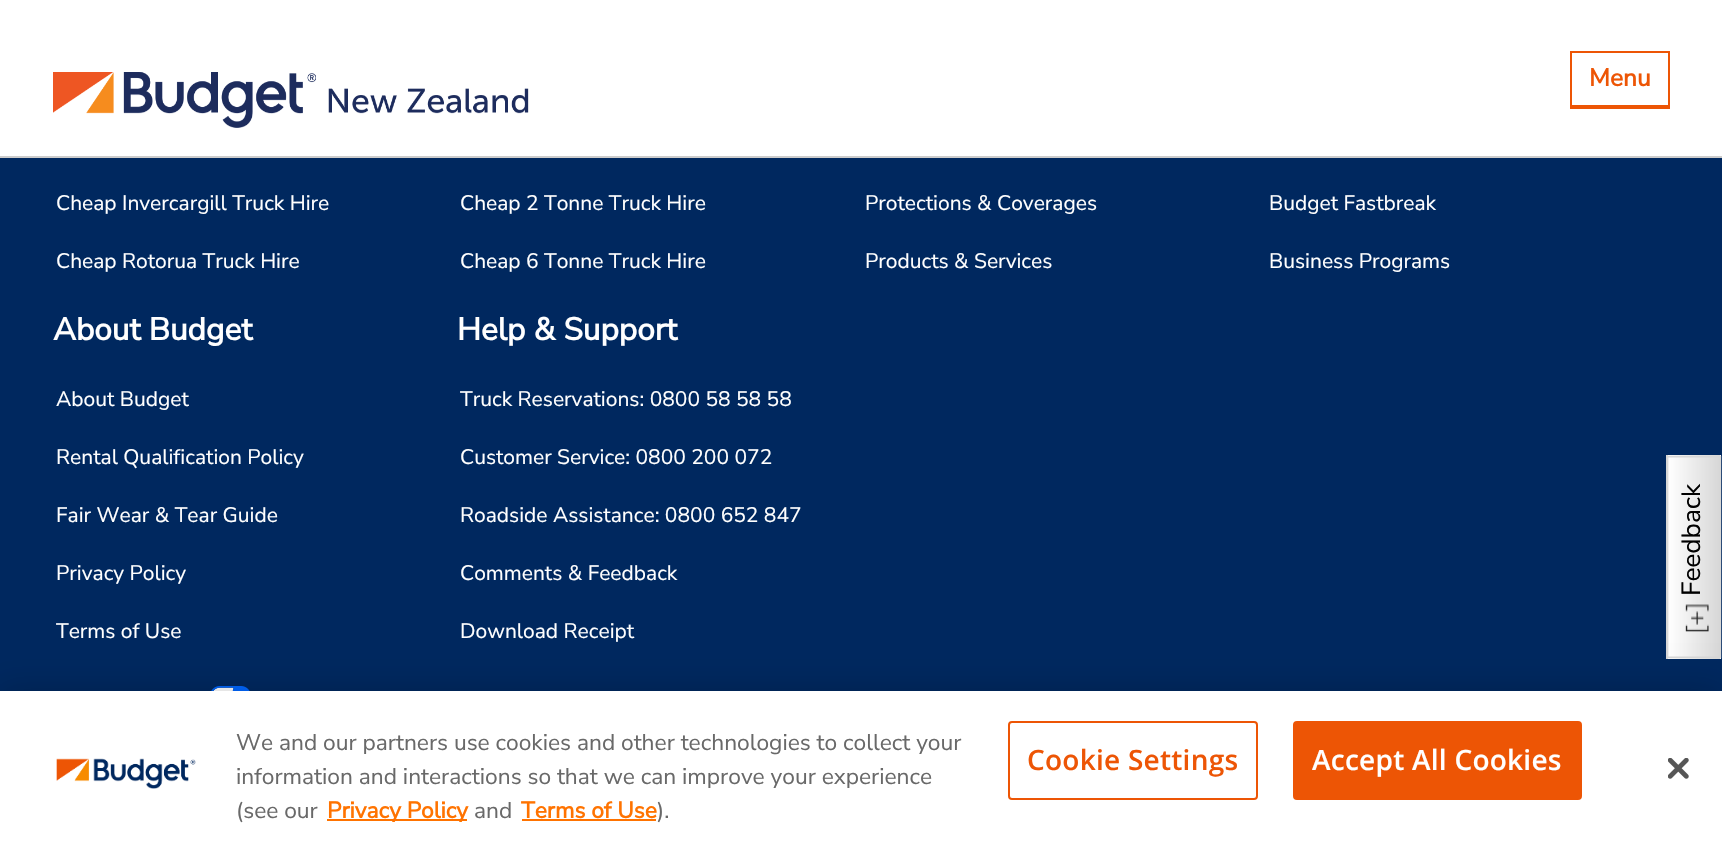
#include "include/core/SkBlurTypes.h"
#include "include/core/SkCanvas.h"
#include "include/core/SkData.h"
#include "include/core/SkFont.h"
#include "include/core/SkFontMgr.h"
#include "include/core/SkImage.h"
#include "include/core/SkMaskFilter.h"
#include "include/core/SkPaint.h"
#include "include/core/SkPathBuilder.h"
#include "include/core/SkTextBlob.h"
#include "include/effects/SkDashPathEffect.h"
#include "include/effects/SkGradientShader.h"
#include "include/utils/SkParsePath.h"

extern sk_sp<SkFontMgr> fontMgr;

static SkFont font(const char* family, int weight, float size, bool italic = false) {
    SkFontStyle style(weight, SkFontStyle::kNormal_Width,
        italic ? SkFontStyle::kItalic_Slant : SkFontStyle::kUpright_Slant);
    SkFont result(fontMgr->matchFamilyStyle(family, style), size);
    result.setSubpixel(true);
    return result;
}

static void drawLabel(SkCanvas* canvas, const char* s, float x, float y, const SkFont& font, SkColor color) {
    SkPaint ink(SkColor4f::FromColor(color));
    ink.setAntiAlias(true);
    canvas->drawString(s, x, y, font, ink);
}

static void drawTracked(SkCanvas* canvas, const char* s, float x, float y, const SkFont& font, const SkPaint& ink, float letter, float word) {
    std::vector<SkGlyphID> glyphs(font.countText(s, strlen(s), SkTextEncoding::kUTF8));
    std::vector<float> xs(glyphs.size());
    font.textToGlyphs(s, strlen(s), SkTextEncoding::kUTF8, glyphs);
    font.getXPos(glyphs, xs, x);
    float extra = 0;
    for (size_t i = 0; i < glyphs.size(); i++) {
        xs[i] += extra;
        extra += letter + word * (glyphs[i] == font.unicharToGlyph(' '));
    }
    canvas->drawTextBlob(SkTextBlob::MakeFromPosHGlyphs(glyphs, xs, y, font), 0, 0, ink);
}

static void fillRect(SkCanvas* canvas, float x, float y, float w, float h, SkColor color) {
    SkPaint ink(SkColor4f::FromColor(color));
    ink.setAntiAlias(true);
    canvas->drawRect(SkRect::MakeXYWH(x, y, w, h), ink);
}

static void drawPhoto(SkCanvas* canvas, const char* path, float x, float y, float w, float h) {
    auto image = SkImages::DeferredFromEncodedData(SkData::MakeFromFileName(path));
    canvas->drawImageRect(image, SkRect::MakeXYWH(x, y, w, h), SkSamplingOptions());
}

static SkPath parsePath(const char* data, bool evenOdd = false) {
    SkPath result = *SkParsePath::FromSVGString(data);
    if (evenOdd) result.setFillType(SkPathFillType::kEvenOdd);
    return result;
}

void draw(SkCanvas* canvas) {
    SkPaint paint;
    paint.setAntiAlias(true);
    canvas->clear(0xFF00285F);
    fillRect(canvas, 0, 0, 1722, 156, 0xFFFFFFFF);
    fillRect(canvas, 0, 156, 1722, 2, 0xFFCCCCCC);
    drawPhoto(canvas, "assets/img1.png", 53, 72, 476, 56);
    paint.setColor(0xFFED5505);
    canvas->drawPath(parsePath("M1570 107V109H1670V53V107Z"), paint);
    paint.setStroke(true);
    paint.setStrokeWidth(2);
    canvas->drawRect(SkRect::MakeXYWH(1571, 52, 98, 54), paint);
    SkFont font1 = font("Nunito Sans", 700, 24.5f);
    drawLabel(canvas, "Menu", 1589, 86, font1, 0xFFED5505);
    SkFont font2 = font("Nunito Sans", 400, 21);
    drawLabel(canvas, "Cheap Invercargill Truck Hire", 56, 210, font2, 0xFFFFFFFF);
    drawLabel(canvas, "Cheap Rotorua Truck Hire", 56, 268, font2, 0xFFFFFFFF);
    drawLabel(canvas, "Cheap 2 Tonne Truck Hire", 460, 210, font2, 0xFFFFFFFF);
    drawLabel(canvas, "Cheap 6 Tonne Truck Hire", 460, 268, font2, 0xFFFFFFFF);
    drawLabel(canvas, "Protections & Coverages", 865, 210, font2, 0xFFFFFFFF);
    drawLabel(canvas, "Products & Services", 865, 268, font2, 0xFFFFFFFF);
    drawLabel(canvas, "Budget Fastbreak", 1269, 210, font2, 0xFFFFFFFF);
    drawLabel(canvas, "Business Programs", 1269, 268, font2, 0xFFFFFFFF);
    SkFont font3 = font("Nunito Sans", 700, 31.5f);
    drawLabel(canvas, "About Budget", 53, 340, font3, 0xFFFFFFFF);
    drawLabel(canvas, "About Budget", 56, 406, font2, 0xFFFFFFFF);
    drawLabel(canvas, "Rental Qualification Policy", 56, 464, font2, 0xFFFFFFFF);
    drawLabel(canvas, "Fair Wear & Tear Guide", 56, 522, font2, 0xFFFFFFFF);
    drawLabel(canvas, "Privacy Policy", 56, 580, font2, 0xFFFFFFFF);
    drawLabel(canvas, "Terms of Use", 56, 638, font2, 0xFFFFFFFF);
    drawPhoto(canvas, "assets/img2.png", 211, 686, 39, 5);
    drawLabel(canvas, "Help & Support", 457, 340, font3, 0xFFFFFFFF);
    drawLabel(canvas, "Truck Reservations: 0800 58 58 58", 460, 406, font2, 0xFFFFFFFF);
    drawLabel(canvas, "Customer Service: 0800 200 072", 460, 464, font2, 0xFFFFFFFF);
    drawLabel(canvas, "Roadside Assistance: 0800 652 847", 460, 522, font2, 0xFFFFFFFF);
    drawLabel(canvas, "Comments & Feedback", 460, 580, font2, 0xFFFFFFFF);
    drawLabel(canvas, "Download Receipt", 460, 638, font2, 0xFFFFFFFF);
    paint.setStroke(false);
    {
        const SkColor colors[] = {0xFFFFFFFF, 0xFFD7D7D7};
        const float stops[] = {0, 1};
        const SkPoint ends[] = {{1617, 557}, {1668, 557}};
        paint.setShader(SkGradientShader::MakeLinear(ends, colors, stops, 2, SkTileMode::kClamp));
        paint.setAlpha(255);
    }
    canvas->drawRect(SkRect::MakeXYWH(1666, 455, 2, 204), paint);
    {
        const SkColor colors[] = {0xFFFFFFFF, 0xFFD7D7D7};
        const float stops[] = {0, 1};
        const SkPoint ends[] = {{1668, 557}, {1720, 557}};
        paint.setShader(SkGradientShader::MakeLinear(ends, colors, stops, 2, SkTileMode::kClamp));
        paint.setAlpha(255);
    }
    canvas->drawRect(SkRect::MakeXYWH(1668, 455, 52, 204), paint);
    {
        const SkColor colors[] = {0xFFFFFFFF, 0xFFD7D7D7};
        const float stops[] = {0, 1};
        const SkPoint ends[] = {{1720, 557}, {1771, 557}};
        paint.setShader(SkGradientShader::MakeLinear(ends, colors, stops, 2, SkTileMode::kClamp));
        paint.setAlpha(255);
    }
    canvas->drawRect(SkRect::MakeXYWH(1720, 455, 1, 204), paint);
    canvas->save();
    canvas->clipPath(parsePath("M1666.5 658.5V455.5H1721.5V658.5Z"), true);
    paint.setStroke(true);
    paint.setStrokeWidth(1.8f);
    paint.setShader(nullptr);
    paint.setColor(0xFFD7D7D7);
    canvas->drawPath(parsePath("M1667.5 657.5V456.5H1720.5V657.5Z"), paint);
    canvas->restore();
    SkFont font4 = font("Nunito Sans", 400, 26.25f);
    canvas->save();
    canvas->rotate(-90, 1700, 596);
    drawLabel(canvas, "Feedback", 1700, 596, font4, 0xFF000000);
    canvas->restore();
    drawPhoto(canvas, "assets/img3.png", 1685, 604, 24, 28);
    paint.setStroke(false);
    paint.setColor(0x33000000);
    paint.setMaskFilter(SkMaskFilter::MakeBlur(kNormal_SkBlurStyle, 16));
    canvas->drawRect(SkRect::MakeXYWH(0, 691, 1722, 156), paint);
    paint.setMaskFilter(nullptr);
    fillRect(canvas, 0, 691, 1722, 156, 0xFFFFFFFF);
    drawPhoto(canvas, "assets/img4.png", 56, 758, 140, 31);
    SkFont font5 = font("Nunito Sans", 400, 22.75f);
    drawLabel(canvas, "We and our partners use cookies and other technologies to collect your", 236, 750, font5, 0xFF696969);
    drawLabel(canvas, "information and interactions so that we can improve your experience", 236, 784, font5, 0xFF696969);
    drawLabel(canvas, "(see our", 236, 818, font5, 0xFF696969);
    fillRect(canvas, 327, 819, 140, 2, 0xFFFF7300);
    SkFont font6 = font("Nunito Sans", 700, 22.75f);
    drawLabel(canvas, "Privacy Policy", 327, 818, font6, 0xFFFF7300);
    drawLabel(canvas, "and", 474, 818, font5, 0xFF696969);
    drawLabel(canvas, "Terms of Use", 521, 818, font6, 0xFFFF7300);
    fillRect(canvas, 522, 819, 134, 2, 0xFFFF7300);
    drawLabel(canvas, ").", 657, 818, font5, 0xFF696969);
    paint.setStroke(true);
    paint.setStrokeWidth(2);
    paint.setColor(0xFFED5505);
    canvas->drawRoundRect(SkRect::MakeXYWH(1009, 722, 248, 77), 3, 3, paint);
    SkFont font7 = font("Open Sans", 600, 28);
    paint.setStroke(false);
    drawTracked(canvas, "Cookie Settings", 1027, 770, font7, paint, 0.25f, 0);
    canvas->drawRoundRect(SkRect::MakeXYWH(1294, 722, 287, 77), 3, 3, paint);
    paint.setStroke(true);
    canvas->drawRoundRect(SkRect::MakeXYWH(1294, 722, 287, 77), 3, 3, paint);
    paint.setStroke(false);
    paint.setColor(0xFFFFFFFF);
    drawTracked(canvas, "Accept All Cookies", 1312, 770, font7, paint, 0.25f, 0);
    drawPhoto(canvas, "assets/img5.png", 1668, 758, 21, 21);
}
